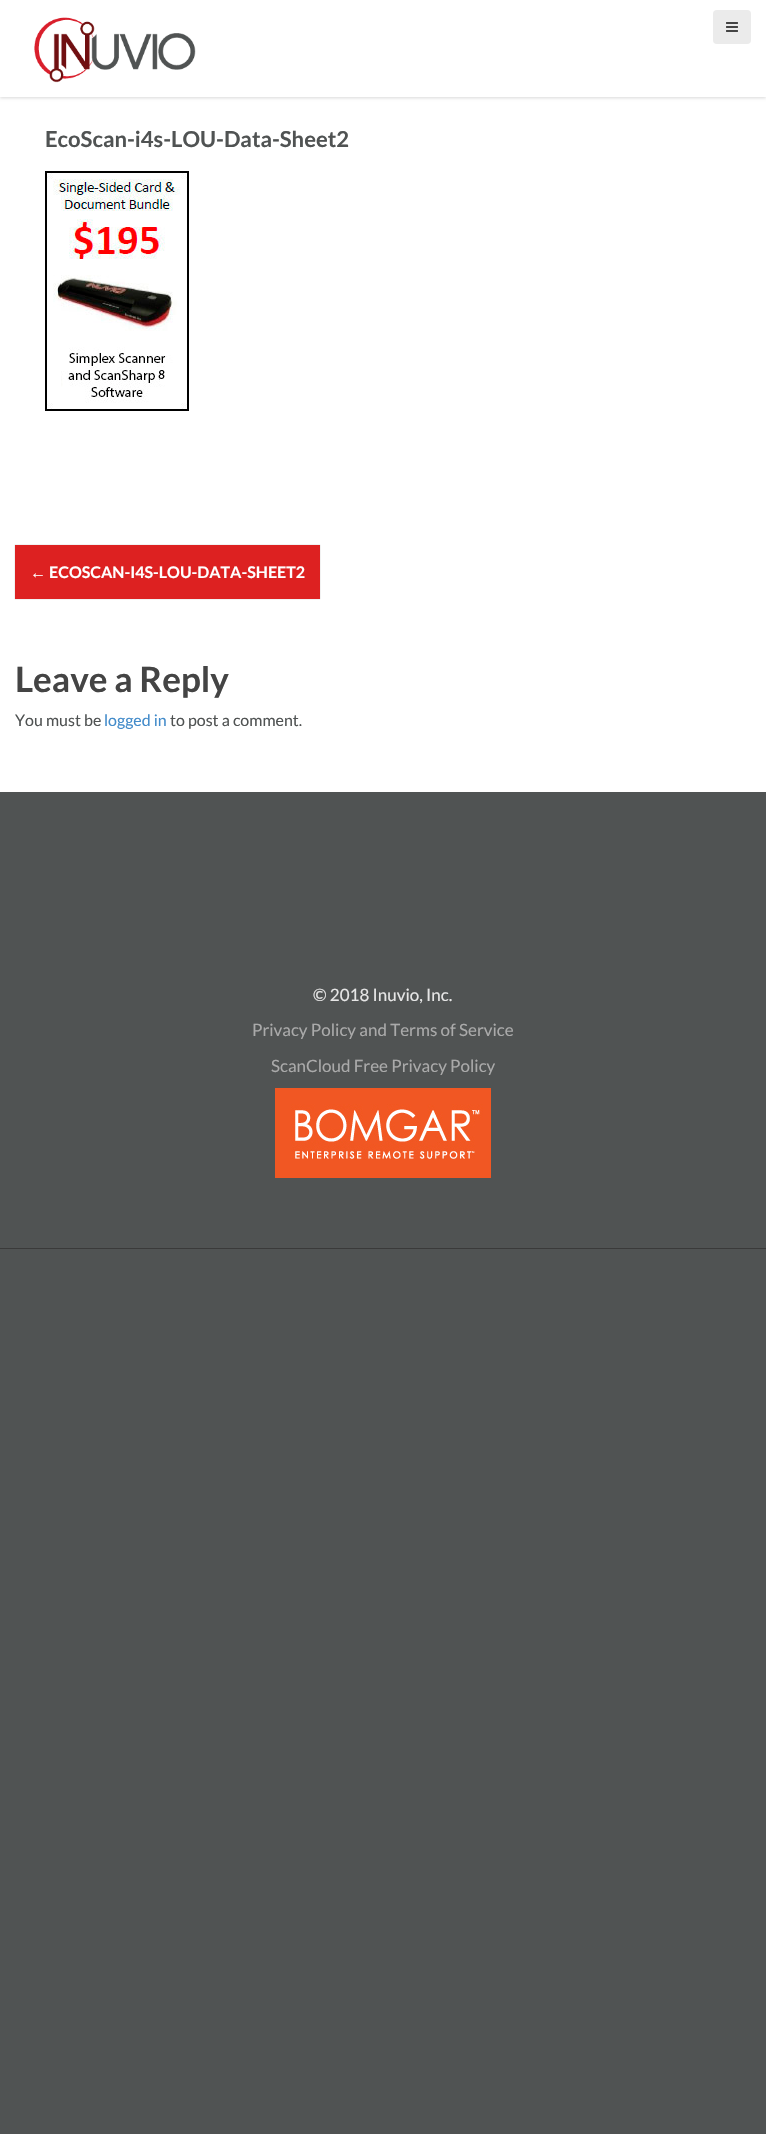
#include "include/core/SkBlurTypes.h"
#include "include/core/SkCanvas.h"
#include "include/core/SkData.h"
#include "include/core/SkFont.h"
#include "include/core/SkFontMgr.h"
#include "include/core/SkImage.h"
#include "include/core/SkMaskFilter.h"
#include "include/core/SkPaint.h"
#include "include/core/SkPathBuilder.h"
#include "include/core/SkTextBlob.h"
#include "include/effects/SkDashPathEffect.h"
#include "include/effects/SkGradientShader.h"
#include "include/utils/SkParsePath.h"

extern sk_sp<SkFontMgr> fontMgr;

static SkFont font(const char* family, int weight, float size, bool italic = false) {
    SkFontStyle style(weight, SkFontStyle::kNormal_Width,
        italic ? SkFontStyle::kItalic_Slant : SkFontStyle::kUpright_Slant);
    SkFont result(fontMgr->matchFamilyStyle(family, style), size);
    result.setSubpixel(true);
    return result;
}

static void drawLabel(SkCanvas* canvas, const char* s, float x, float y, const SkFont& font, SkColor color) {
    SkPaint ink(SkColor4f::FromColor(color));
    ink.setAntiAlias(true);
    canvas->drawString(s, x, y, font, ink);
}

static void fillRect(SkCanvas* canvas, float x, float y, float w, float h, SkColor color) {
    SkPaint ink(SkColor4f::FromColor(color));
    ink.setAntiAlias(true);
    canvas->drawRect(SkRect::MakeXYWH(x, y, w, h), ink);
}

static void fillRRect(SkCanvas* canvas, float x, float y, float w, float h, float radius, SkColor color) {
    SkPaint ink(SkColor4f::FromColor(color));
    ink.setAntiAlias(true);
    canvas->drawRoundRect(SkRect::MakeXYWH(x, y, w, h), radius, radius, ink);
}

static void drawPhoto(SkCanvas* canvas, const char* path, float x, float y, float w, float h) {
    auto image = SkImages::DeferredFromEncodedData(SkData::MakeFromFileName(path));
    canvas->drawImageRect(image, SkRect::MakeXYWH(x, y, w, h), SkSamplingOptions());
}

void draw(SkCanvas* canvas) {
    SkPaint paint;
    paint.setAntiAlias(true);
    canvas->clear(0xFF505353);
    fillRect(canvas, 0, 97, 766, 695, 0xFFFFFFFF);
    paint.setColor(0x26000000);
    paint.setMaskFilter(SkMaskFilter::MakeBlur(kNormal_SkBlurStyle, 1.5f));
    canvas->drawRect(SkRect::MakeXYWH(0, 1, 766, 97), paint);
    paint.setMaskFilter(nullptr);
    fillRect(canvas, 0, 0, 766, 97, 0xFFFFFFFF);
    drawPhoto(canvas, "assets/img1.png", 34, 17, 162, 66);
    fillRRect(canvas, 713, 10, 38, 34, 4, 0xFFEBEBEB);
    drawPhoto(canvas, "assets/img2.png", 726, 22, 12, 10);
    SkFont font1 = font("Lato", 700, 22);
    drawLabel(canvas, "EcoScan-i4s-LOU-Data-Sheet2", 45, 147, font1, 0xFF505353);
    drawPhoto(canvas, "assets/img3.png", 45, 171, 144, 240);
    paint.setColor(0xFFADADAD);
    paint.setMaskFilter(SkMaskFilter::MakeBlur(kNormal_SkBlurStyle, 0.5f));
    canvas->drawRect(SkRect::MakeXYWH(15, 545, 305, 54), paint);
    paint.setMaskFilter(nullptr);
    fillRect(canvas, 15, 545, 305, 54, 0xFFDD2121);
    SkFont font2 = font("Liberation Serif", 700, 16);
    drawLabel(canvas, "←", 30, 578, font2, 0xFFFFFFFF);
    SkFont font3 = font("Lato", 700, 16);
    drawLabel(canvas, "ECOSCAN-I4S-LOU-DATA-SHEET2", 49, 578, font3, 0xFFFFFFFF);
    SkFont font4 = font("Lato", 700, 35);
    drawLabel(canvas, "Leave a Reply", 15, 692, font4, 0xFF444444);
    SkFont font5 = font("Lato", 400, 16);
    drawLabel(canvas, "You must be", 15, 726, font5, 0xFF505353);
    drawLabel(canvas, "logged in", 104, 726, font5, 0xFF428BCA);
    drawLabel(canvas, "to post a comment.", 170, 726, font5, 0xFF505353);
    SkFont font6 = font("Lato", 400, 17);
    drawLabel(canvas, "© 2018 Inuvio, Inc.", 313, 1001, font6, 0xFFE6E6E6);
    drawLabel(canvas, "Privacy Policy and Terms of Service", 252, 1036, font6, 0xFFAAAAAA);
    drawLabel(canvas, "ScanCloud Free Privacy Policy", 271, 1072, font6, 0xFFAAAAAA);
    drawPhoto(canvas, "assets/img4.png", 275, 1088, 216, 90);
    fillRect(canvas, 0, 1248, 766, 1, 0xFF3A3A3A);
}
